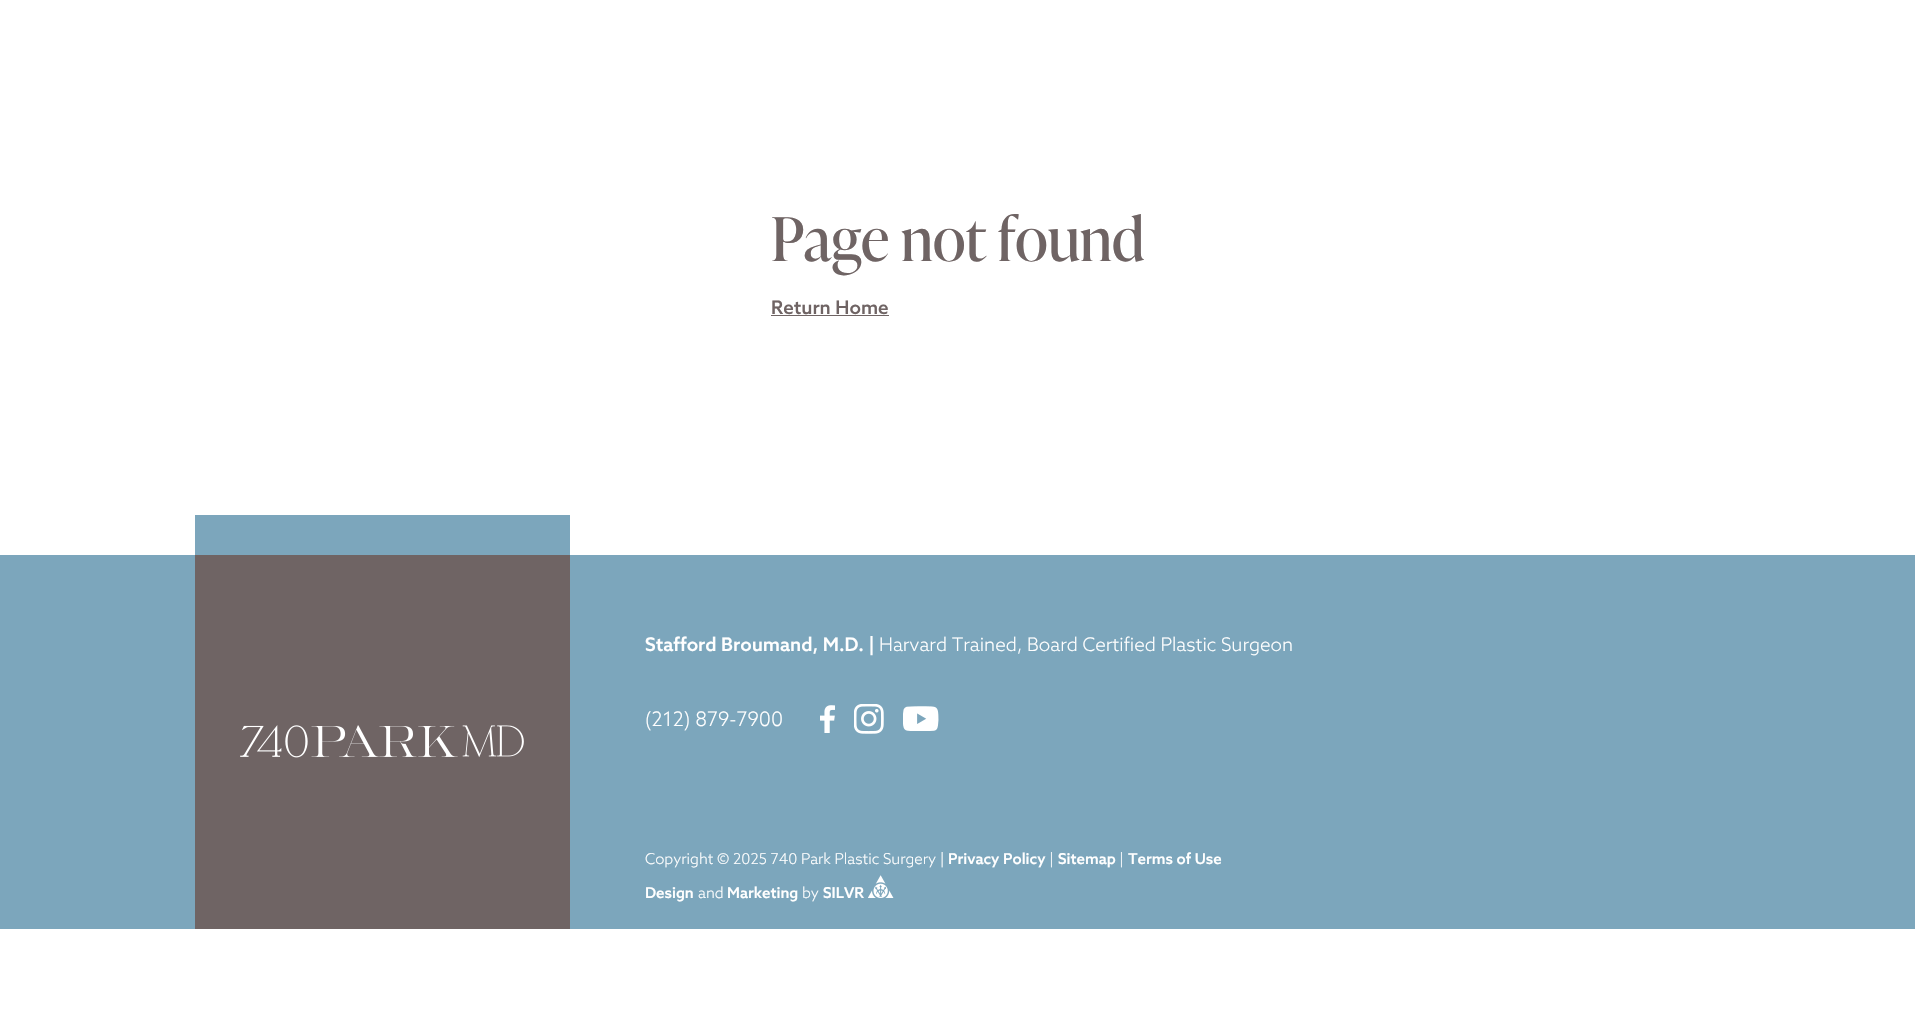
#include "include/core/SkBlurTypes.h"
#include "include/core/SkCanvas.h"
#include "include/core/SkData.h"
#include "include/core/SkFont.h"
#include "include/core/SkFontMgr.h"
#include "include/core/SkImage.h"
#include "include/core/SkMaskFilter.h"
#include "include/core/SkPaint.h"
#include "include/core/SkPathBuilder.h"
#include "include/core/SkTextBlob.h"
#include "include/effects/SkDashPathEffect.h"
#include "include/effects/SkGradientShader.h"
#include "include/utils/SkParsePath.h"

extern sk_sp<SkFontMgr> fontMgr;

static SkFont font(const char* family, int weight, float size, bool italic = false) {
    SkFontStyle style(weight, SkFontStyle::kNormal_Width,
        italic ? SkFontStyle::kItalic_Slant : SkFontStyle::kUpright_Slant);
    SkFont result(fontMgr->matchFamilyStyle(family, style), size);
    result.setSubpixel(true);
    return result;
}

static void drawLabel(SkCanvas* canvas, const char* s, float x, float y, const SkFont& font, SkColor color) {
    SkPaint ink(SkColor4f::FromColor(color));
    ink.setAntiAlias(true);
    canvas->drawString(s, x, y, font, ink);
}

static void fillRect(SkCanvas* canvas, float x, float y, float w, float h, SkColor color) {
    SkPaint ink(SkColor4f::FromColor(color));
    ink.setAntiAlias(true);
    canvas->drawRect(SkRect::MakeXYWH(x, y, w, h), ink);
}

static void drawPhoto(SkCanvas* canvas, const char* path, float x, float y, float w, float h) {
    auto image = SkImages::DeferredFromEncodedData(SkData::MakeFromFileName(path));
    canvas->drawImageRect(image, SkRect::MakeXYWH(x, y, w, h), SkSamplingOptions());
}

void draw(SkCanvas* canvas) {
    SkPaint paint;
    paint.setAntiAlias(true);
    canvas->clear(0xFFFFFFFF);
    SkFont font1 = font("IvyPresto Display", 400, 60);
    drawLabel(canvas, "Page not found", 771, 261, font1, 0xFF6F6464);
    SkFont font2 = font("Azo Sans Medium", 500, 18.75f);
    drawLabel(canvas, "Return Home", 771, 314, font2, 0xFF6F6464);
    fillRect(canvas, 771, 315, 118, 1, 0xFF6F6464);
    fillRect(canvas, 0, 555, 1915, 374, 0xFF7CA6BC);
    fillRect(canvas, 195, 515, 375, 40, 0xFF7CA6BC);
    fillRect(canvas, 195, 555, 375, 374, 0xFF6F6464);
    drawPhoto(canvas, "assets/img1.png", 240, 725, 284, 33);
    drawLabel(canvas, "Stafford Broumand, M.D. |", 645, 651, font2, 0xFFFFFFFF);
    SkFont font3 = font("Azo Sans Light", 300, 18.75f);
    drawLabel(canvas, "Harvard Trained, Board Certified Plastic Surgeon", 879, 651, font3, 0xFFFFFFFF);
    SkFont font4 = font("Azo Sans Light", 300, 20);
    drawLabel(canvas, "(212) 879-7900", 645, 726, font4, 0xFFFFFFFF);
    drawPhoto(canvas, "assets/img2.png", 820, 705, 15, 28);
    drawPhoto(canvas, "assets/img3.png", 854, 704, 30, 30);
    drawPhoto(canvas, "assets/img4.png", 903, 706, 36, 25);
    SkFont font5 = font("Azo Sans Light", 300, 15);
    drawLabel(canvas, "Copyright © 2025 740 Park Plastic Surgery |", 645, 864, font5, 0xFFFFFFFF);
    SkFont font6 = font("Azo Sans Medium", 500, 15);
    drawLabel(canvas, "Privacy Policy", 948, 864, font6, 0xFFFFFFFF);
    drawLabel(canvas, "|", 1049, 864, font5, 0xFFFFFFFF);
    drawLabel(canvas, "Sitemap", 1058, 864, font6, 0xFFFFFFFF);
    drawLabel(canvas, "|", 1119, 864, font5, 0xFFFFFFFF);
    drawLabel(canvas, "Terms of Use", 1128, 864, font6, 0xFFFFFFFF);
    drawLabel(canvas, "Design", 645, 898, font6, 0xFFFFFFFF);
    drawLabel(canvas, "and", 698, 898, font5, 0xFFFFFFFF);
    drawLabel(canvas, "Marketing", 727, 898, font6, 0xFFFFFFFF);
    drawLabel(canvas, "by", 802, 898, font5, 0xFFFFFFFF);
    drawLabel(canvas, "SILVR", 823, 898, font6, 0xFFFFFFFF);
    drawPhoto(canvas, "assets/img5.png", 868, 875, 26, 23);
}
